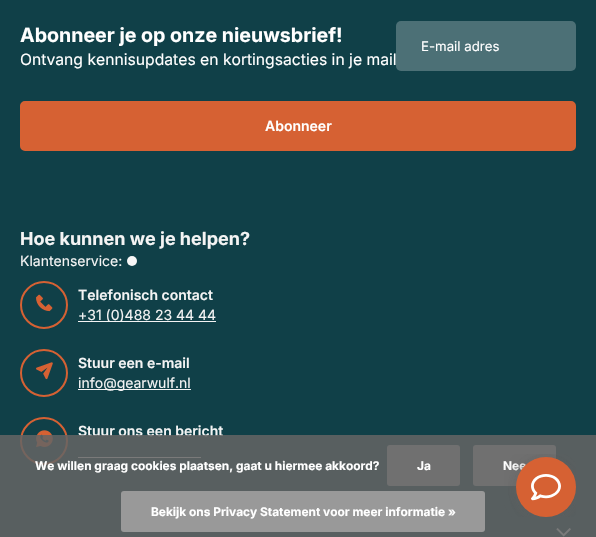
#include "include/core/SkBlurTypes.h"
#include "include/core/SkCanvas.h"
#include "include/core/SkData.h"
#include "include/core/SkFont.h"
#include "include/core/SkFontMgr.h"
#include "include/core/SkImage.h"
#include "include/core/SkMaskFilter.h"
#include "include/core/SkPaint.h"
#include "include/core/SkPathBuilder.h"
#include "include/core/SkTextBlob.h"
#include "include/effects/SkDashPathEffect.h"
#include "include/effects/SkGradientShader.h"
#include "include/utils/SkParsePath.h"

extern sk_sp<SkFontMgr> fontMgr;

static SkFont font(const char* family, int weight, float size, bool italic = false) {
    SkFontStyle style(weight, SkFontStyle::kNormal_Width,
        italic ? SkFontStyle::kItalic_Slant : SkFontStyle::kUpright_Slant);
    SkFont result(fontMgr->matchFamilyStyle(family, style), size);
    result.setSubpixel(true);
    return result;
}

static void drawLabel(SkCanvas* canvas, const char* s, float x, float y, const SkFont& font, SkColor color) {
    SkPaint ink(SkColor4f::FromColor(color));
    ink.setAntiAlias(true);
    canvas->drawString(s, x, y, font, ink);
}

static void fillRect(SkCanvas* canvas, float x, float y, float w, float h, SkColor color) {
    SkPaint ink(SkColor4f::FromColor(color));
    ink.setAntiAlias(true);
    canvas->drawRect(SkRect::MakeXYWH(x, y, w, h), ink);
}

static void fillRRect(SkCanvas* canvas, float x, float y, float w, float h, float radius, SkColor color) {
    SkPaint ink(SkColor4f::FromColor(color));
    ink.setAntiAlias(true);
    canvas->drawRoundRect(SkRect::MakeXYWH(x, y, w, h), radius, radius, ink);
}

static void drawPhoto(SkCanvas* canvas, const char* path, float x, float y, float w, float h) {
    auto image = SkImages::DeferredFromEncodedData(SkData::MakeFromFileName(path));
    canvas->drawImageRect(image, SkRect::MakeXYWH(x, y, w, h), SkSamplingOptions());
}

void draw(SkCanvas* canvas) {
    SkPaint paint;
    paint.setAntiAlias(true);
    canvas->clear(0xFF104048);
    SkFont font1 = font("Inter", 700, 19.6f);
    drawLabel(canvas, "Abonneer je op onze nieuwsbrief!", 20, 42, font1, 0xFFFFFFFF);
    SkFont font2 = font("Inter", 400, 15.7f);
    drawLabel(canvas, "Ontvang kennisupdates en kortingsacties in je mail", 20, 65, font2, 0xFFFFFFFF);
    fillRRect(canvas, 396, 21, 180, 50, 5, 0xFF4C7076);
    SkFont font3 = font("Inter", 400, 13.25f);
    drawLabel(canvas, "E-mail adres", 421, 51, font3, 0xFFFFFFFF);
    paint.setColor(0xFFD66133);
    canvas->drawRoundRect(SkRect::MakeXYWH(21, 102, 554, 48), 4, 4, paint);
    paint.setStroke(true);
    paint.setStrokeWidth(2);
    canvas->drawRoundRect(SkRect::MakeXYWH(21, 102, 554, 48), 4, 4, paint);
    SkFont font4 = font("Inter", 600, 14);
    drawLabel(canvas, "Abonneer", 265, 131, font4, 0xFFFFFFFF);
    SkFont font5 = font("Inter", 700, 18);
    drawLabel(canvas, "Hoe kunnen we je helpen?", 20, 245, font5, 0xFFF4F4F4);
    SkFont font6 = font("Inter", 400, 14);
    drawLabel(canvas, "Klantenservice:", 20, 266, font6, 0xFFF4F4F4);
    paint.setStroke(false);
    paint.setColor(0xFFF7F7F7);
    canvas->drawCircle(132, 261, 5, paint);
    paint.setStroke(true);
    paint.setColor(0xFFD66133);
    canvas->drawCircle(44, 305, 23, paint);
    drawPhoto(canvas, "assets/img1.png", 36, 294, 17, 18);
    drawLabel(canvas, "Telefonisch contact", 78, 300, font4, 0xFFF4F4F4);
    fillRect(canvas, 78, 321, 138, 1, 0xFFF4F4F4);
    drawLabel(canvas, "+31 (0)488 23 44 44", 78, 320, font6, 0xFFF4F4F4);
    canvas->drawCircle(44, 373, 23, paint);
    drawPhoto(canvas, "assets/img2.png", 36, 362, 17, 18);
    drawLabel(canvas, "Stuur een e-mail", 78, 368, font4, 0xFFF4F4F4);
    fillRect(canvas, 78, 389, 113, 1, 0xFFF4F4F4);
    drawLabel(canvas, "info@gearwulf.nl", 78, 388, font6, 0xFFF4F4F4);
    canvas->drawCircle(44, 441, 23, paint);
    drawPhoto(canvas, "assets/img3.png", 36, 430, 17, 17);
    drawLabel(canvas, "Stuur ons een bericht", 78, 436, font4, 0xFFF4F4F4);
    fillRect(canvas, 78, 457, 123, 1, 0xFFF4F4F4);
    drawPhoto(canvas, "assets/img4.png", 556, 528, 15, 9);
    fillRect(canvas, 0, 435, 596, 102, 0xD9646464);
    SkFont font7 = font("Inter", 700, 11.9f);
    drawLabel(canvas, "We willen graag cookies plaatsen, gaat u hiermee akkoord?", 35, 470, font7, 0xFFFFFFFF);
    fillRRect(canvas, 387, 445, 73, 41, 3, 0xFF707070);
    drawLabel(canvas, "Ja", 417, 470, font7, 0xFFFFFFFF);
    fillRRect(canvas, 473, 445, 83, 41, 3, 0xFF707070);
    drawLabel(canvas, "Nee", 503, 470, font7, 0xFFFFFFFF);
    fillRRect(canvas, 121, 491, 364, 41, 3, 0xFF999999);
    drawLabel(canvas, "Bekijk ons Privacy Statement voor meer informatie »", 151, 516, font7, 0xFFFFFFFF);
    drawPhoto(canvas, "assets/img5.png", 504, 454, 72, 63);
}
